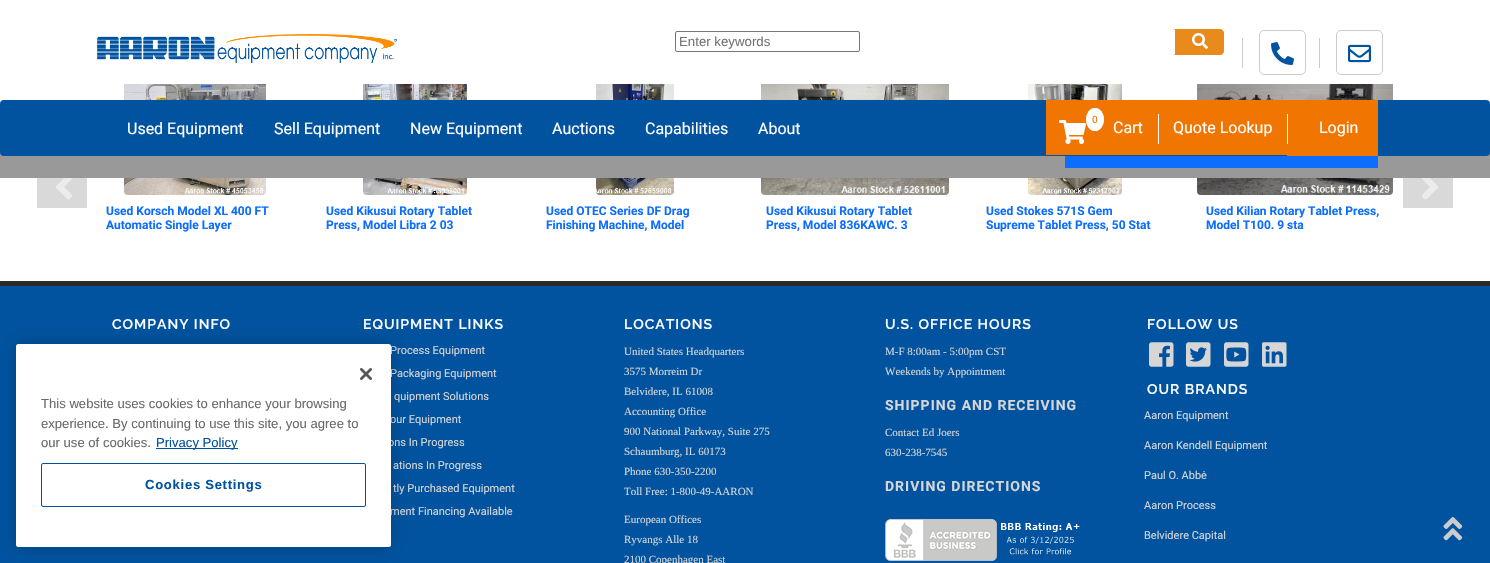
#include "include/core/SkBlurTypes.h"
#include "include/core/SkCanvas.h"
#include "include/core/SkData.h"
#include "include/core/SkFont.h"
#include "include/core/SkFontMgr.h"
#include "include/core/SkImage.h"
#include "include/core/SkMaskFilter.h"
#include "include/core/SkPaint.h"
#include "include/core/SkPathBuilder.h"
#include "include/core/SkTextBlob.h"
#include "include/effects/SkDashPathEffect.h"
#include "include/effects/SkGradientShader.h"
#include "include/utils/SkParsePath.h"

extern sk_sp<SkFontMgr> fontMgr;

static SkFont font(const char* family, int weight, float size, bool italic = false) {
    SkFontStyle style(weight, SkFontStyle::kNormal_Width,
        italic ? SkFontStyle::kItalic_Slant : SkFontStyle::kUpright_Slant);
    SkFont result(fontMgr->matchFamilyStyle(family, style), size);
    result.setSubpixel(true);
    return result;
}

static void drawLabel(SkCanvas* canvas, const char* s, float x, float y, const SkFont& font, SkColor color) {
    SkPaint ink(SkColor4f::FromColor(color));
    ink.setAntiAlias(true);
    canvas->drawString(s, x, y, font, ink);
}

static void drawTracked(SkCanvas* canvas, const char* s, float x, float y, const SkFont& font, const SkPaint& ink, float letter, float word) {
    std::vector<SkGlyphID> glyphs(font.countText(s, strlen(s), SkTextEncoding::kUTF8));
    std::vector<float> xs(glyphs.size());
    font.textToGlyphs(s, strlen(s), SkTextEncoding::kUTF8, glyphs);
    font.getXPos(glyphs, xs, x);
    float extra = 0;
    for (size_t i = 0; i < glyphs.size(); i++) {
        xs[i] += extra;
        extra += letter + word * (glyphs[i] == font.unicharToGlyph(' '));
    }
    canvas->drawTextBlob(SkTextBlob::MakeFromPosHGlyphs(glyphs, xs, y, font), 0, 0, ink);
}

static void fillRect(SkCanvas* canvas, float x, float y, float w, float h, SkColor color) {
    SkPaint ink(SkColor4f::FromColor(color));
    ink.setAntiAlias(true);
    canvas->drawRect(SkRect::MakeXYWH(x, y, w, h), ink);
}

static void fillRRect(SkCanvas* canvas, float x, float y, float w, float h, float radius, SkColor color) {
    SkPaint ink(SkColor4f::FromColor(color));
    ink.setAntiAlias(true);
    canvas->drawRoundRect(SkRect::MakeXYWH(x, y, w, h), radius, radius, ink);
}

static void drawPhoto(SkCanvas* canvas, const char* path, float x, float y, float w, float h) {
    auto image = SkImages::DeferredFromEncodedData(SkData::MakeFromFileName(path));
    canvas->drawImageRect(image, SkRect::MakeXYWH(x, y, w, h), SkSamplingOptions());
}

static SkPath parsePath(const char* data, bool evenOdd = false) {
    SkPath result = *SkParsePath::FromSVGString(data);
    if (evenOdd) result.setFillType(SkPathFillType::kEvenOdd);
    return result;
}

void draw(SkCanvas* canvas) {
    SkPaint paint;
    paint.setAntiAlias(true);
    canvas->clear(0xFFFFFFFF);
    drawPhoto(canvas, "assets/img1.png", 97, 34, 300, 29);
    paint.setStroke(true);
    paint.setStrokeWidth(1);
    paint.setColor(0xFF767676);
    canvas->drawRoundRect(SkRect::MakeXYWH(675.5f, 31.5f, 184, 20), 1.5f, 1.5f, paint);
    SkFont font1 = font("Liberation Sans", 400, 13.25f);
    drawLabel(canvas, "Enter keywords", 679, 46, font1, 0xFF757575);
    paint.setStroke(false);
    paint.setColor(0xFFE98B1C);
    canvas->drawPath(parsePath("M1174 29H1219C1222 29 1224 31 1224 34V50C1224 53 1222 55 1219 55H1174Z"), paint);
    canvas->drawPath(parsePath("M1174 29L1175 30H1219C1220 30 1221 30 1222 31L1223 30C1222 30 1220 29 1219 29Z"), paint);
    canvas->drawPath(parsePath("M1224 50V34C1224 32.5 1223.5 31 1222.5 30.5L1222 31C1222.5 32 1223 33 1223 34V50C1223 51 1222.5 52 1222 53L1222.5 53.5C1223.5 53 1224 51.5 1224 50Z"), paint);
    canvas->drawPath(parsePath("M1219 55C1220 55 1222 54 1223 54L1222 53C1221 54 1220 54 1219 54H1175L1174 55Z"), paint);
    paint.setColor(0xFFFFFFFF);
    canvas->drawPath(parsePath("M1174 29V55L1175 54V30Z"), paint);
    drawPhoto(canvas, "assets/img2.png", 1192, 33, 16, 16);
    fillRect(canvas, 1242, 38, 1, 30, 0xFFCCCCCC);
    paint.setStroke(true);
    paint.setColor(0xFFCCCCCC);
    canvas->drawRoundRect(SkRect::MakeXYWH(1259.5f, 30.5f, 46, 44), 4.5f, 4.5f, paint);
    drawPhoto(canvas, "assets/img3.png", 1271, 42, 23, 23);
    fillRect(canvas, 1319, 38, 1, 30, 0xFFCCCCCC);
    canvas->drawRoundRect(SkRect::MakeXYWH(1336.5f, 30.5f, 46, 44), 4.5f, 4.5f, paint);
    drawPhoto(canvas, "assets/img4.png", 1348, 44, 23, 19);
    drawPhoto(canvas, "assets/img9.png", 124, 84, 142, 111);
    drawPhoto(canvas, "assets/img10.png", 363, 84, 104, 111);
    drawPhoto(canvas, "assets/img11.png", 596, 84, 78, 111);
    drawPhoto(canvas, "assets/img12.png", 761, 84, 188, 111);
    drawPhoto(canvas, "assets/img13.png", 1028, 84, 94, 111);
    drawPhoto(canvas, "assets/img14.png", 1197, 84, 196, 111);
    fillRect(canvas, 0, 152, 1490, 26, 0xFF999999);
    fillRRect(canvas, 0, 100, 1490, 56, 4, 0xFF01539F);
    SkFont font2 = font("Roboto", 400, 16);
    drawLabel(canvas, "Used Equipment", 127, 134, font2, 0xFFFFFFFF);
    drawLabel(canvas, "Sell Equipment", 274, 134, font2, 0xFFFFFFFF);
    drawLabel(canvas, "New Equipment", 410, 134, font2, 0xFFFFFFFF);
    drawLabel(canvas, "Auctions", 552, 134, font2, 0xFFFFFFFF);
    drawLabel(canvas, "Capabilities", 645, 134, font2, 0xFFFFFFFF);
    drawLabel(canvas, "About", 758, 134, font2, 0xFFFFFFFF);
    fillRect(canvas, 1046, 100, 241, 55, 0xFFF17501);
    drawPhoto(canvas, "assets/img5.png", 1059, 120, 27, 24);
    paint.setStroke(false);
    paint.setColor(0xFFFFFFFF);
    canvas->drawOval(SkRect::MakeXYWH(1086, 108, 18, 23), paint);
    paint.setStroke(true);
    canvas->drawPath(parsePath("M1095 108.5C1106 108.5 1106 130.5 1095 130.5C1084 130.5 1084 108.5 1095 108.5Z"), paint);
    SkFont font3 = font("Roboto", 400, 10);
    drawLabel(canvas, "0", 1092, 123, font3, 0xFFF17501);
    drawLabel(canvas, "Cart", 1113, 133, font2, 0xFFFFFFFF);
    fillRect(canvas, 1158, 114, 1, 30, 0xFFFFFFFF);
    drawLabel(canvas, "Quote Lookup", 1173, 133, font2, 0xFFFFFFFF);
    fillRect(canvas, 1287, 100, 91, 56, 0xFFF17501);
    fillRect(canvas, 1287, 114, 1, 30, 0xFFFFFFFF);
    drawLabel(canvas, "Login", 1319, 133, font2, 0xFFFFFFFF);
    fillRect(canvas, 0, 286, 1490, 277, 0xFF01539F);
    drawPhoto(canvas, "assets/img6.png", 1443, 517, 20, 24);
    fillRect(canvas, 1065, 156, 313, 12, 0xFF0D6EFD);
    fillRect(canvas, 37, 178, 50, 30, 0xFFD9D9D9);
    drawPhoto(canvas, "assets/img7.png", 56, 178, 16, 22);
    fillRect(canvas, 1403, 178, 50, 30, 0xFFD9D9D9);
    drawPhoto(canvas, "assets/img8.png", 1422, 178, 16, 22);
    SkFont font4 = font("Roboto", 700, 12);
    drawLabel(canvas, "Used Korsch Model XL 400 FT", 106, 215, font4, 0xFF0D6EFD);
    drawLabel(canvas, "Automatic Single Layer", 106, 229, font4, 0xFF0D6EFD);
    drawLabel(canvas, "Used Kikusui Rotary Tablet", 326, 215, font4, 0xFF0D6EFD);
    drawLabel(canvas, "Press, Model Libra 2 03", 326, 229, font4, 0xFF0D6EFD);
    drawLabel(canvas, "Used OTEC Series DF Drag", 546, 215, font4, 0xFF0D6EFD);
    drawLabel(canvas, "Finishing Machine, Model", 546, 229, font4, 0xFF0D6EFD);
    drawLabel(canvas, "Used Kikusui Rotary Tablet", 766, 215, font4, 0xFF0D6EFD);
    drawLabel(canvas, "Press, Model 836KAWC. 3", 766, 229, font4, 0xFF0D6EFD);
    drawLabel(canvas, "Used Stokes 571S Gem", 986, 215, font4, 0xFF0D6EFD);
    drawLabel(canvas, "Supreme Tablet Press, 50 Stat", 986, 229, font4, 0xFF0D6EFD);
    drawLabel(canvas, "Used Kilian Rotary Tablet Press,", 1206, 215, font4, 0xFF0D6EFD);
    drawLabel(canvas, "Model T100. 9 sta", 1206, 229, font4, 0xFF0D6EFD);
    fillRect(canvas, 0, 281, 1490, 5, 0xFF292929);
    SkFont font5 = font("Raleway", 600, 14);
    paint.setStroke(false);
    drawTracked(canvas, "COMPANY INFO", 112, 329, font5, paint, 1, 0);
    drawTracked(canvas, "EQUIPMENT LINKS", 363, 329, font5, paint, 1, 0);
    SkFont font6 = font("Roboto", 400, 11);
    drawLabel(canvas, "Process Equipment", 390, 354, font6, 0xFFD6D6D6);
    drawLabel(canvas, "Packaging Equipment", 390, 377, font6, 0xFFD6D6D6);
    drawLabel(canvas, "quipment Solutions", 394, 400, font6, 0xFFD6D6D6);
    drawLabel(canvas, "our Equipment", 390, 423, font6, 0xFFD6D6D6);
    drawLabel(canvas, "ons In Progress", 388, 446, font6, 0xFFD6D6D6);
    drawLabel(canvas, "ations In Progress", 393, 469, font6, 0xFFD6D6D6);
    drawLabel(canvas, "tly Purchased Equipment", 393, 492, font6, 0xFFD6D6D6);
    drawLabel(canvas, "ment Financing Available", 390, 515, font6, 0xFFD6D6D6);
    drawTracked(canvas, "LOCATIONS", 624, 329, font5, paint, 1, 0);
    SkFont font7 = font("Liberation Serif", 400, 11);
    drawLabel(canvas, "United States Headquarters", 624, 355, font7, 0xFFD6D6D6);
    drawLabel(canvas, "3575 Morreim Dr", 624, 375, font7, 0xFFD6D6D6);
    drawLabel(canvas, "Belvidere, IL 61008", 624, 395, font7, 0xFFD6D6D6);
    drawLabel(canvas, "Accounting Office", 624, 415, font7, 0xFFD6D6D6);
    drawLabel(canvas, "900 National Parkway, Suite 275", 624, 435, font7, 0xFFD6D6D6);
    drawLabel(canvas, "Schaumburg, IL 60173", 624, 455, font7, 0xFFD6D6D6);
    drawLabel(canvas, "Phone 630-350-2200", 624, 475, font7, 0xFFD6D6D6);
    drawLabel(canvas, "Toll Free: 1-800-49-AARON", 624, 495, font7, 0xFFD6D6D6);
    drawLabel(canvas, "European Offices", 624, 523, font7, 0xFFD6D6D6);
    drawLabel(canvas, "Ryvangs Alle 18", 624, 543, font7, 0xFFD6D6D6);
    drawLabel(canvas, "2100 Copenhagen East", 624, 563, font7, 0xFFD6D6D6);
    drawTracked(canvas, "U.S. OFFICE HOURS", 885, 329, font5, paint, 1, 0);
    drawLabel(canvas, "M-F 8:00am - 5:00pm CST", 885, 355, font7, 0xFFD6D6D6);
    drawLabel(canvas, "Weekends by Appointment", 885, 375, font7, 0xFFD6D6D6);
    SkFont font8 = font("Roboto", 700, 14);
    paint.setColor(0xFFD6D6D6);
    drawTracked(canvas, "SHIPPING AND RECEIVING", 885, 410, font8, paint, 1, 0);
    drawLabel(canvas, "Contact Ed Joers", 885, 436, font7, 0xFFD6D6D6);
    drawLabel(canvas, "630-238-7545", 885, 456, font7, 0xFFD6D6D6);
    drawTracked(canvas, "DRIVING DIRECTIONS", 885, 491, font8, paint, 1, 0);
    drawPhoto(canvas, "assets/img15.png", 885, 519, 195, 42);
    paint.setColor(0xFFFFFFFF);
    drawTracked(canvas, "FOLLOW US", 1147, 329, font5, paint, 1, 0);
    drawPhoto(canvas, "assets/img16.png", 1149, 342, 25, 25);
    drawPhoto(canvas, "assets/img17.png", 1186, 342, 25, 25);
    drawPhoto(canvas, "assets/img18.png", 1224, 342, 25, 25);
    drawPhoto(canvas, "assets/img19.png", 1262, 342, 25, 25);
    drawTracked(canvas, "OUR BRANDS", 1147, 394, font5, paint, 1, 0);
    drawLabel(canvas, "Aaron Equipment", 1144, 419, font6, 0xFFD6D6D6);
    drawLabel(canvas, "Aaron Kendell Equipment", 1144, 449, font6, 0xFFD6D6D6);
    drawLabel(canvas, "Paul O. Abbė", 1144, 479, font6, 0xFFD6D6D6);
    drawLabel(canvas, "Aaron Process", 1144, 509, font6, 0xFFD6D6D6);
    drawLabel(canvas, "Belvidere Capital", 1144, 539, font6, 0xFFD6D6D6);
    paint.setColor(0x33000000);
    paint.setMaskFilter(SkMaskFilter::MakeBlur(kNormal_SkBlurStyle, 9));
    canvas->drawRoundRect(SkRect::MakeXYWH(16, 344, 375, 203), 2.5f, 2.5f, paint);
    paint.setMaskFilter(nullptr);
    fillRRect(canvas, 16, 344, 375, 203, 2.5f, 0xFFFFFFFF);
    drawPhoto(canvas, "assets/img20.png", 360, 368, 12, 12);
    SkFont font9 = font("Liberation Sans", 400, 13.1f);
    drawLabel(canvas, "This website uses cookies to enhance your browsing", 41, 408, font9, 0xFF696969);
    drawLabel(canvas, "experience. By continuing to use this site, you agree to", 41, 428, font9, 0xFF696969);
    drawLabel(canvas, "our use of cookies.", 41, 447, font9, 0xFF696969);
    fillRect(canvas, 156, 448, 82, 1, 0xFF01539F);
    drawLabel(canvas, "Privacy Policy", 156, 447, font9, 0xFF01539F);
    paint.setStroke(true);
    paint.setColor(0xFF01539F);
    canvas->drawRoundRect(SkRect::MakeXYWH(41.5f, 463.5f, 324, 43), 1.5f, 1.5f, paint);
    SkFont font10 = font("Liberation Sans", 700, 13.1f);
    paint.setStroke(false);
    drawTracked(canvas, "Cookies Settings", 145, 489, font10, paint, 0.7f, 0);
}
